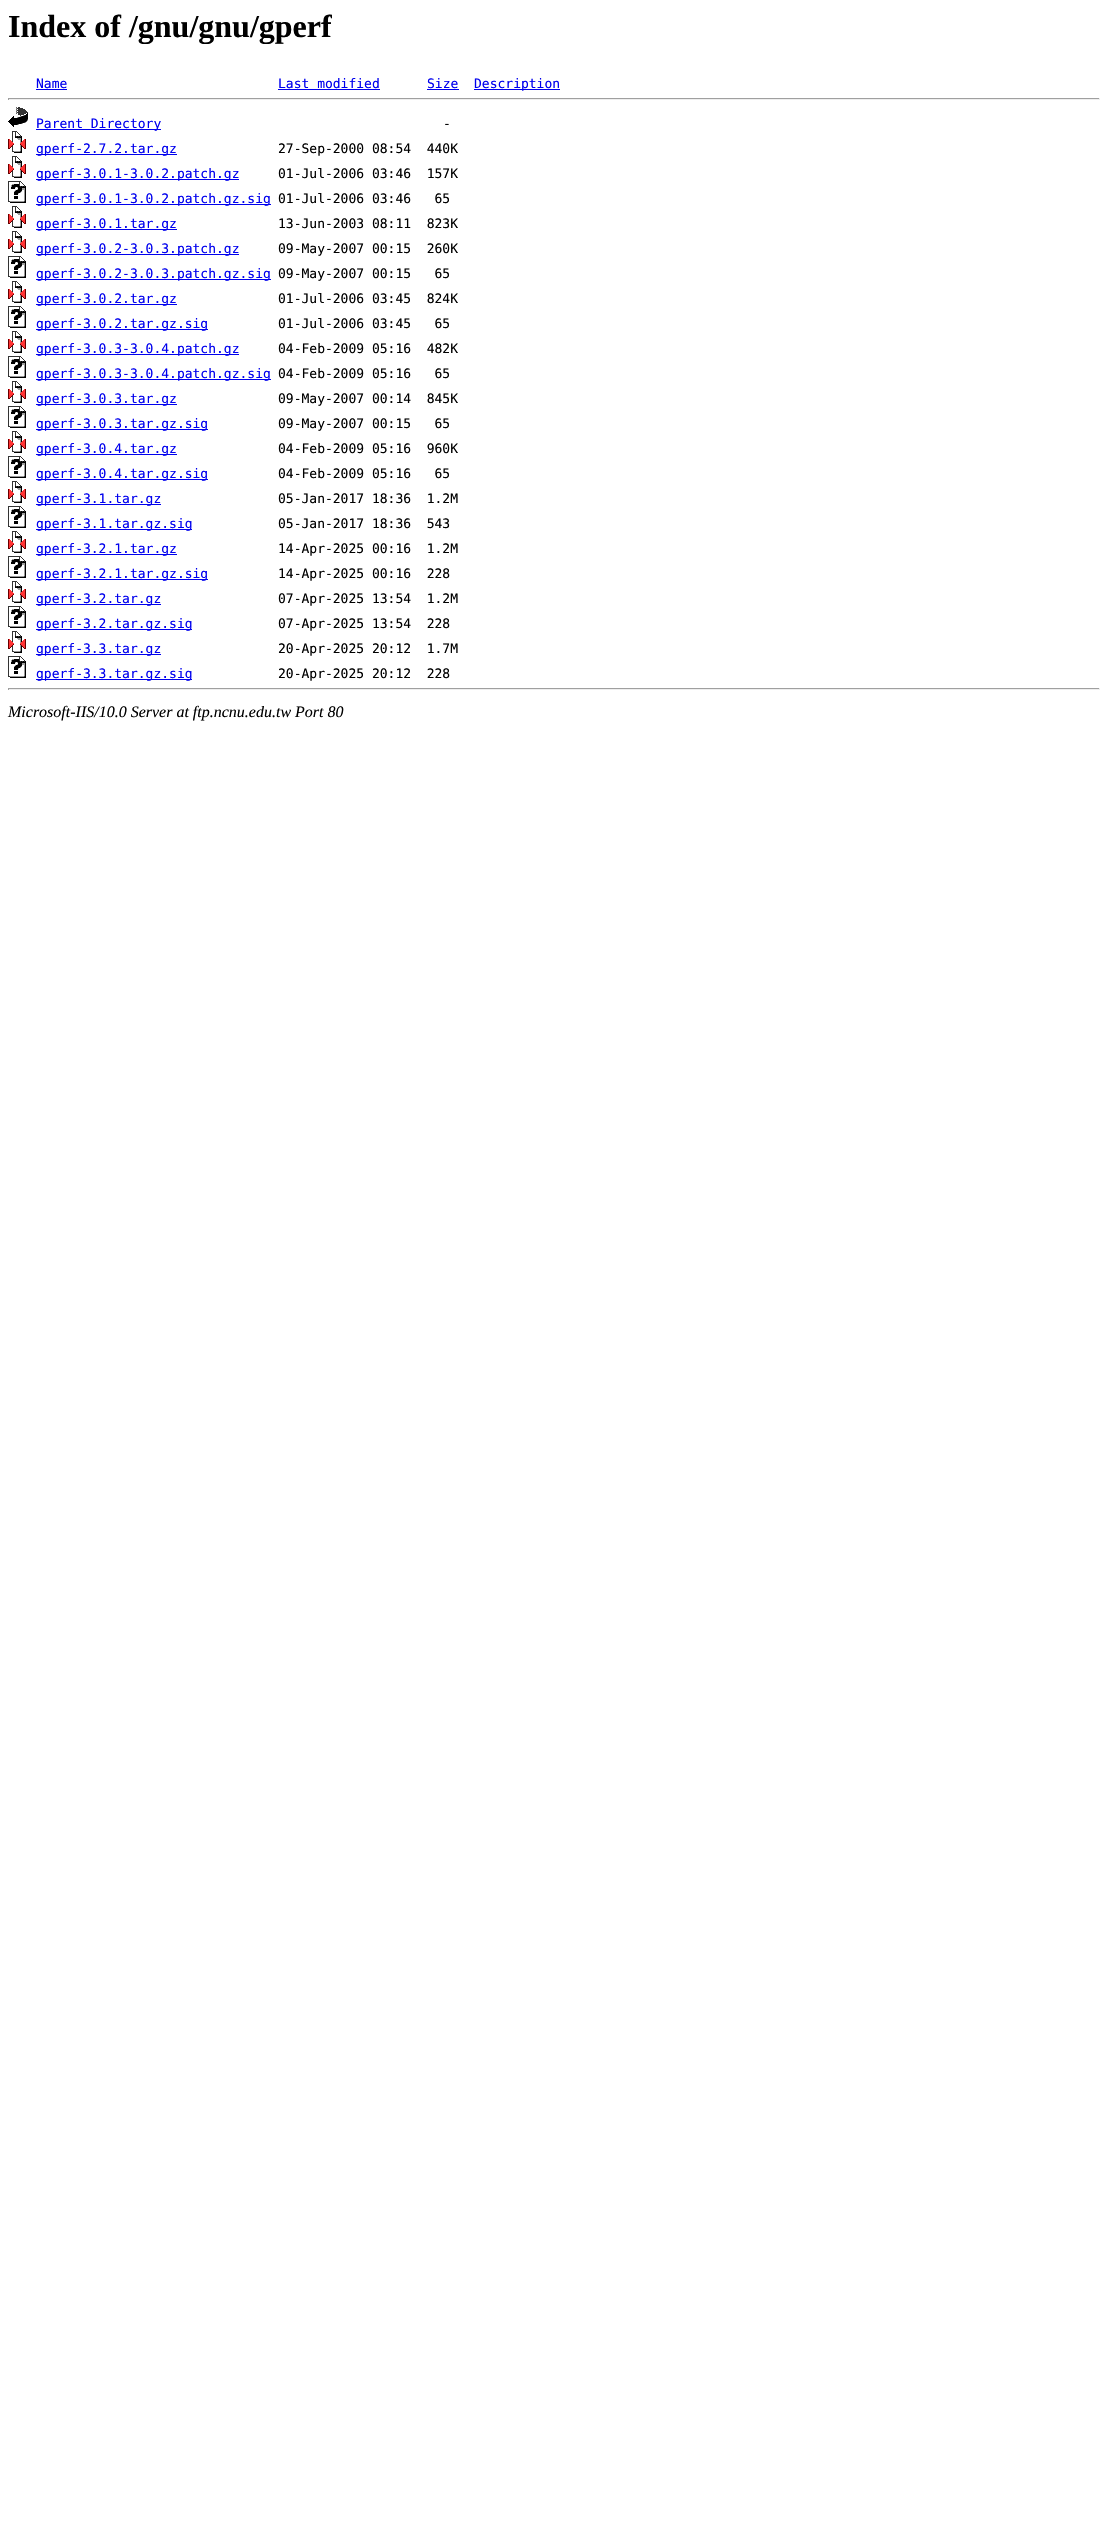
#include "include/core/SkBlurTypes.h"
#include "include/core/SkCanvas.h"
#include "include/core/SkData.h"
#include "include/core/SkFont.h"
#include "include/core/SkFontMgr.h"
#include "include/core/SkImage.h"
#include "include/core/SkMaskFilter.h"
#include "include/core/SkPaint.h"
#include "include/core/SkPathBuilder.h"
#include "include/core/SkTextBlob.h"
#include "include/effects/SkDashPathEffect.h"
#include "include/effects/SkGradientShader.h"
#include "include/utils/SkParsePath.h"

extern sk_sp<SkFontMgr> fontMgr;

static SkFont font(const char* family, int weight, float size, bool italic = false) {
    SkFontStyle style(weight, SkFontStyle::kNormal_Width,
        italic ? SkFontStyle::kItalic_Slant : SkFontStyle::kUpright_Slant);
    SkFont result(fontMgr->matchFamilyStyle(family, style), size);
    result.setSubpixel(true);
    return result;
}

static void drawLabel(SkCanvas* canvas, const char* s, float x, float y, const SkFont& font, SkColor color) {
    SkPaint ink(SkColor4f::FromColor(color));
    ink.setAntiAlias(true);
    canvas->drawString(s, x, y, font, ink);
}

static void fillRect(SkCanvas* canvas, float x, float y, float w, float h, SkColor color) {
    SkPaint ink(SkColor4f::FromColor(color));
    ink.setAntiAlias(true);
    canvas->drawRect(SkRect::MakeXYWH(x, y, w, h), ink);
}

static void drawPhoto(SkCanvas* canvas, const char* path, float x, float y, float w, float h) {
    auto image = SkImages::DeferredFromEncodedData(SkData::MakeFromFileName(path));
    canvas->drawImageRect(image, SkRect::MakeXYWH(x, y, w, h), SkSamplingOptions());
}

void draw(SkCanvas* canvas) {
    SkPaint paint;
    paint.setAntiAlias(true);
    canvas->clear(0xFFFFFFFF);
    SkFont font1 = font("Liberation Serif", 700, 32);
    drawLabel(canvas, "Index of /gnu/gnu/gperf", 8, 37, font1, 0xFF000000);
    SkFont font2 = font("DejaVu Sans Mono", 400, 13);
    drawLabel(canvas, "Name", 36, 88, font2, 0xFF0000EE);
    fillRect(canvas, 36, 89, 31, 1, 0xFF0000EE);
    drawLabel(canvas, "Last modified", 278, 88, font2, 0xFF0000EE);
    fillRect(canvas, 278, 89, 102, 1, 0xFF0000EE);
    drawLabel(canvas, "Size", 427, 88, font2, 0xFF0000EE);
    fillRect(canvas, 427, 89, 32, 1, 0xFF0000EE);
    fillRect(canvas, 474, 89, 86, 1, 0xFF0000EE);
    drawLabel(canvas, "Description", 474, 88, font2, 0xFF0000EE);
    fillRect(canvas, 8, 98, 1092, 1, 0xFF9F9F9F);
    fillRect(canvas, 1099, 98, 1, 2, 0xFFEEEEEE);
    fillRect(canvas, 8, 99, 1092, 1, 0xFFEEEEEE);
    fillRect(canvas, 8, 98, 1, 2, 0xFF9F9F9F);
    drawPhoto(canvas, "assets/img1.png", 8, 107, 20, 20);
    fillRect(canvas, 36, 129, 125, 1, 0xFF0000EE);
    drawLabel(canvas, "Parent Directory", 36, 128, font2, 0xFF0000EE);
    drawLabel(canvas, "-", 443, 128, font2, 0xFF000000);
    drawPhoto(canvas, "assets/img2.png", 8, 131, 18, 22);
    fillRect(canvas, 36, 154, 141, 1, 0xFF0000EE);
    drawLabel(canvas, "gperf-2.7.2.tar.gz", 36, 153, font2, 0xFF0000EE);
    drawLabel(canvas, "27-Sep-2000 08:54  440K", 278, 153, font2, 0xFF000000);
    drawPhoto(canvas, "assets/img2.png", 8, 156, 18, 22);
    fillRect(canvas, 36, 179, 203, 1, 0xFF0000EE);
    drawLabel(canvas, "gperf-3.0.1-3.0.2.patch.gz", 36, 178, font2, 0xFF0000EE);
    drawLabel(canvas, "01-Jul-2006 03:46  157K", 278, 178, font2, 0xFF000000);
    drawPhoto(canvas, "assets/img3.png", 8, 181, 18, 22);
    fillRect(canvas, 36, 204, 235, 1, 0xFF0000EE);
    drawLabel(canvas, "gperf-3.0.1-3.0.2.patch.gz.sig", 36, 203, font2, 0xFF0000EE);
    drawLabel(canvas, "01-Jul-2006 03:46   65", 278, 203, font2, 0xFF000000);
    drawPhoto(canvas, "assets/img2.png", 8, 206, 18, 22);
    fillRect(canvas, 36, 229, 141, 1, 0xFF0000EE);
    drawLabel(canvas, "gperf-3.0.1.tar.gz", 36, 228, font2, 0xFF0000EE);
    drawLabel(canvas, "13-Jun-2003 08:11  823K", 278, 228, font2, 0xFF000000);
    drawPhoto(canvas, "assets/img2.png", 8, 231, 18, 22);
    fillRect(canvas, 36, 254, 203, 1, 0xFF0000EE);
    drawLabel(canvas, "gperf-3.0.2-3.0.3.patch.gz", 36, 253, font2, 0xFF0000EE);
    drawLabel(canvas, "09-May-2007 00:15  260K", 278, 253, font2, 0xFF000000);
    drawPhoto(canvas, "assets/img3.png", 8, 256, 18, 22);
    fillRect(canvas, 36, 279, 235, 1, 0xFF0000EE);
    drawLabel(canvas, "gperf-3.0.2-3.0.3.patch.gz.sig", 36, 278, font2, 0xFF0000EE);
    drawLabel(canvas, "09-May-2007 00:15   65", 278, 278, font2, 0xFF000000);
    drawPhoto(canvas, "assets/img2.png", 8, 281, 18, 22);
    fillRect(canvas, 36, 304, 141, 1, 0xFF0000EE);
    drawLabel(canvas, "gperf-3.0.2.tar.gz", 36, 303, font2, 0xFF0000EE);
    drawLabel(canvas, "01-Jul-2006 03:45  824K", 278, 303, font2, 0xFF000000);
    drawPhoto(canvas, "assets/img3.png", 8, 306, 18, 22);
    fillRect(canvas, 36, 329, 172, 1, 0xFF0000EE);
    drawLabel(canvas, "gperf-3.0.2.tar.gz.sig", 36, 328, font2, 0xFF0000EE);
    drawLabel(canvas, "01-Jul-2006 03:45   65", 278, 328, font2, 0xFF000000);
    drawPhoto(canvas, "assets/img2.png", 8, 331, 18, 22);
    fillRect(canvas, 36, 354, 203, 1, 0xFF0000EE);
    drawLabel(canvas, "gperf-3.0.3-3.0.4.patch.gz", 36, 353, font2, 0xFF0000EE);
    drawLabel(canvas, "04-Feb-2009 05:16  482K", 278, 353, font2, 0xFF000000);
    drawPhoto(canvas, "assets/img3.png", 8, 356, 18, 22);
    fillRect(canvas, 36, 379, 235, 1, 0xFF0000EE);
    drawLabel(canvas, "gperf-3.0.3-3.0.4.patch.gz.sig", 36, 378, font2, 0xFF0000EE);
    drawLabel(canvas, "04-Feb-2009 05:16   65", 278, 378, font2, 0xFF000000);
    drawPhoto(canvas, "assets/img2.png", 8, 381, 18, 22);
    fillRect(canvas, 36, 404, 141, 1, 0xFF0000EE);
    drawLabel(canvas, "gperf-3.0.3.tar.gz", 36, 403, font2, 0xFF0000EE);
    drawLabel(canvas, "09-May-2007 00:14  845K", 278, 403, font2, 0xFF000000);
    drawPhoto(canvas, "assets/img3.png", 8, 406, 18, 22);
    fillRect(canvas, 36, 429, 172, 1, 0xFF0000EE);
    drawLabel(canvas, "gperf-3.0.3.tar.gz.sig", 36, 428, font2, 0xFF0000EE);
    drawLabel(canvas, "09-May-2007 00:15   65", 278, 428, font2, 0xFF000000);
    drawPhoto(canvas, "assets/img2.png", 8, 431, 18, 22);
    fillRect(canvas, 36, 454, 141, 1, 0xFF0000EE);
    drawLabel(canvas, "gperf-3.0.4.tar.gz", 36, 453, font2, 0xFF0000EE);
    drawLabel(canvas, "04-Feb-2009 05:16  960K", 278, 453, font2, 0xFF000000);
    drawPhoto(canvas, "assets/img3.png", 8, 456, 18, 22);
    fillRect(canvas, 36, 479, 172, 1, 0xFF0000EE);
    drawLabel(canvas, "gperf-3.0.4.tar.gz.sig", 36, 478, font2, 0xFF0000EE);
    drawLabel(canvas, "04-Feb-2009 05:16   65", 278, 478, font2, 0xFF000000);
    drawPhoto(canvas, "assets/img2.png", 8, 481, 18, 22);
    fillRect(canvas, 36, 504, 125, 1, 0xFF0000EE);
    drawLabel(canvas, "gperf-3.1.tar.gz", 36, 503, font2, 0xFF0000EE);
    drawLabel(canvas, "05-Jan-2017 18:36  1.2M", 278, 503, font2, 0xFF000000);
    drawPhoto(canvas, "assets/img3.png", 8, 506, 18, 22);
    fillRect(canvas, 36, 529, 156, 1, 0xFF0000EE);
    drawLabel(canvas, "gperf-3.1.tar.gz.sig", 36, 528, font2, 0xFF0000EE);
    drawLabel(canvas, "05-Jan-2017 18:36  543", 278, 528, font2, 0xFF000000);
    drawPhoto(canvas, "assets/img2.png", 8, 531, 18, 22);
    fillRect(canvas, 36, 554, 141, 1, 0xFF0000EE);
    drawLabel(canvas, "gperf-3.2.1.tar.gz", 36, 553, font2, 0xFF0000EE);
    drawLabel(canvas, "14-Apr-2025 00:16  1.2M", 278, 553, font2, 0xFF000000);
    drawPhoto(canvas, "assets/img3.png", 8, 556, 18, 22);
    fillRect(canvas, 36, 579, 172, 1, 0xFF0000EE);
    drawLabel(canvas, "gperf-3.2.1.tar.gz.sig", 36, 578, font2, 0xFF0000EE);
    drawLabel(canvas, "14-Apr-2025 00:16  228", 278, 578, font2, 0xFF000000);
    drawPhoto(canvas, "assets/img2.png", 8, 581, 18, 22);
    fillRect(canvas, 36, 604, 125, 1, 0xFF0000EE);
    drawLabel(canvas, "gperf-3.2.tar.gz", 36, 603, font2, 0xFF0000EE);
    drawLabel(canvas, "07-Apr-2025 13:54  1.2M", 278, 603, font2, 0xFF000000);
    drawPhoto(canvas, "assets/img3.png", 8, 606, 18, 22);
    fillRect(canvas, 36, 629, 156, 1, 0xFF0000EE);
    drawLabel(canvas, "gperf-3.2.tar.gz.sig", 36, 628, font2, 0xFF0000EE);
    drawLabel(canvas, "07-Apr-2025 13:54  228", 278, 628, font2, 0xFF000000);
    drawPhoto(canvas, "assets/img2.png", 8, 631, 18, 22);
    fillRect(canvas, 36, 654, 125, 1, 0xFF0000EE);
    drawLabel(canvas, "gperf-3.3.tar.gz", 36, 653, font2, 0xFF0000EE);
    drawLabel(canvas, "20-Apr-2025 20:12  1.7M", 278, 653, font2, 0xFF000000);
    drawPhoto(canvas, "assets/img3.png", 8, 656, 18, 22);
    fillRect(canvas, 36, 679, 156, 1, 0xFF0000EE);
    drawLabel(canvas, "gperf-3.3.tar.gz.sig", 36, 678, font2, 0xFF0000EE);
    drawLabel(canvas, "20-Apr-2025 20:12  228", 278, 678, font2, 0xFF000000);
    fillRect(canvas, 8, 688, 1092, 1, 0xFF9F9F9F);
    fillRect(canvas, 1099, 688, 1, 2, 0xFFEEEEEE);
    fillRect(canvas, 8, 689, 1092, 1, 0xFFEEEEEE);
    fillRect(canvas, 8, 688, 1, 2, 0xFF9F9F9F);
    SkFont font3 = font("Liberation Serif", 400, 16, true);
    drawLabel(canvas, "Microsoft-IIS/10.0 Server at ftp.ncnu.edu.tw Port 80", 8, 717, font3, 0xFF000000);
}
